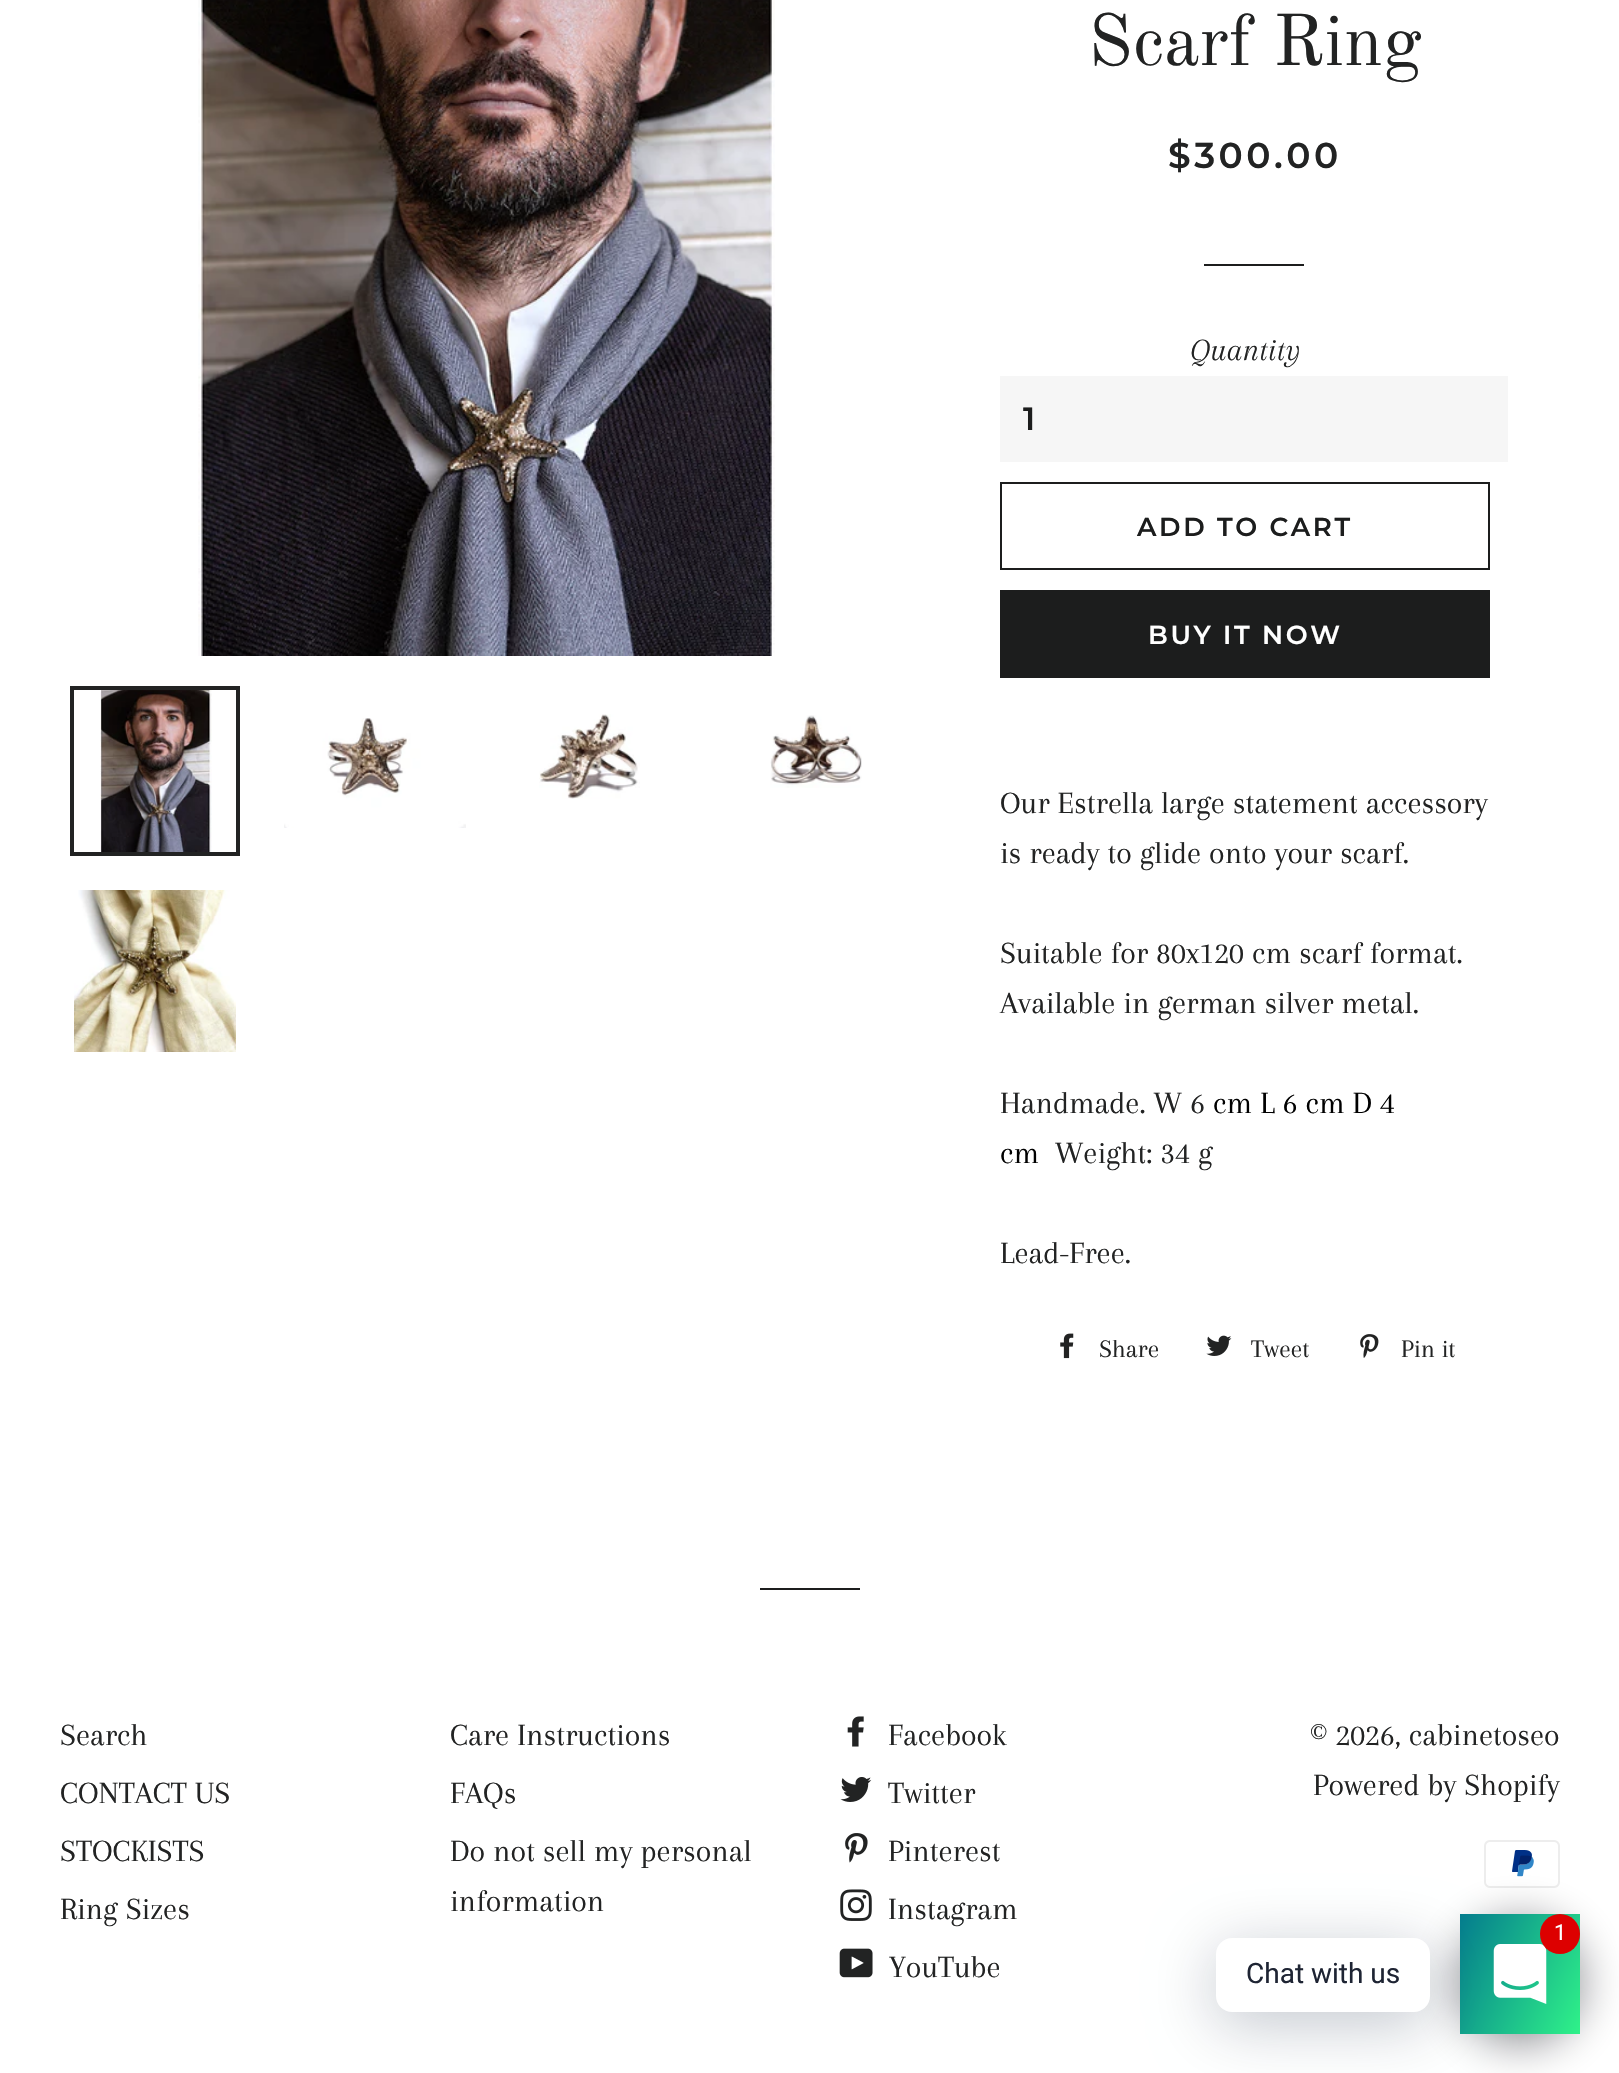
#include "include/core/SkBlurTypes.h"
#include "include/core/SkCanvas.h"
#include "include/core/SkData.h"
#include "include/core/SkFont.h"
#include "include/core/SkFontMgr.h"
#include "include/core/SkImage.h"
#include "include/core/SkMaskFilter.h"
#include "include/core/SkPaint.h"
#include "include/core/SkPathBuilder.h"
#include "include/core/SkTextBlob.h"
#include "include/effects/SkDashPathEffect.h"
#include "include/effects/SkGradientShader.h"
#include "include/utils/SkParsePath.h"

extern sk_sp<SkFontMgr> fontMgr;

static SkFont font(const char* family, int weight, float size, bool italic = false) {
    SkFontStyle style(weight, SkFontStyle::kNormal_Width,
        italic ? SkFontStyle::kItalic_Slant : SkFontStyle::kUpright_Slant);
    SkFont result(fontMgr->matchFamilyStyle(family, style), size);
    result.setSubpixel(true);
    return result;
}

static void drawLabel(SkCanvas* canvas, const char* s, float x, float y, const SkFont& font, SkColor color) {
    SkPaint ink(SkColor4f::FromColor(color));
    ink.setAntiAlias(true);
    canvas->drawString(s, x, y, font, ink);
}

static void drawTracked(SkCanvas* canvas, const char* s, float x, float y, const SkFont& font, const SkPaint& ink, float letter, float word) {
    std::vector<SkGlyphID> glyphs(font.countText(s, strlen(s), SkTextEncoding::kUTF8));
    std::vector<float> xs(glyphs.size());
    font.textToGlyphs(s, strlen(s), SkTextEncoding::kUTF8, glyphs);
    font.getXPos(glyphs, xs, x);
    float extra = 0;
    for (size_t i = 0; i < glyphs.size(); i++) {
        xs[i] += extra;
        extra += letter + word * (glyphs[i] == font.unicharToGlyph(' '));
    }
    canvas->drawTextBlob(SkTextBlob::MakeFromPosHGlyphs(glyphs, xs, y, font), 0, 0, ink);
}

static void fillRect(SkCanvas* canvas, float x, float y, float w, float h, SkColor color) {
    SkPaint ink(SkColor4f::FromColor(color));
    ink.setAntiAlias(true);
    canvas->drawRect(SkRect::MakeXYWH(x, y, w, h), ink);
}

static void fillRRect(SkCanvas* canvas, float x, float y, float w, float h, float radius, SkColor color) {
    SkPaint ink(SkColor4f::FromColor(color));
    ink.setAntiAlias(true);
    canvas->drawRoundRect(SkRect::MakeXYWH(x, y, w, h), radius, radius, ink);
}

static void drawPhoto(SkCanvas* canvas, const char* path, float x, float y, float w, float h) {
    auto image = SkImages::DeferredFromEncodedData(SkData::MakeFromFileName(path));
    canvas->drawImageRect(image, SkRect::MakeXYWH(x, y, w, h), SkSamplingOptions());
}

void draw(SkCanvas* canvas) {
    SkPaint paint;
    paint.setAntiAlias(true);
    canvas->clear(0xFFFFFFFF);
    drawPhoto(canvas, "assets/img1.png", 198, 0, 577, 656);
    paint.setStroke(true);
    paint.setStrokeWidth(4);
    paint.setColor(0xFF222323);
    canvas->drawRect(SkRect::MakeXYWH(72, 688, 166, 166), paint);
    drawPhoto(canvas, "assets/img2.png", 100, 690, 112, 162);
    drawPhoto(canvas, "assets/img3.png", 284, 718, 182, 110);
    drawPhoto(canvas, "assets/img4.png", 539, 714, 101, 85);
    drawPhoto(canvas, "assets/img5.png", 770, 715, 92, 73);
    drawPhoto(canvas, "assets/img6.png", 74, 890, 162, 162);
    SkFont font1 = font("Old Standard TT", 400, 72);
    drawLabel(canvas, "Scarf Ring", 1088, 65, font1, 0xFF222323);
    SkFont font2 = font("Montserrat", 600, 36);
    paint.setStroke(false);
    drawTracked(canvas, "$300.00", 1168, 168, font2, paint, 3.5f, 0);
    fillRect(canvas, 1204, 264, 100, 2, 0xFF1C1D1D);
    SkFont font3 = font("Arapey", 400, 32, true);
    drawLabel(canvas, "Quantity", 1190, 360, font3, 0xFF222323);
    fillRect(canvas, 1000, 376, 508, 86, 0xFFF6F6F6);
    SkFont font4 = font("Montserrat", 600, 32);
    paint.setColor(0xFF1C1D1D);
    drawTracked(canvas, "1", 1023, 430, font4, paint, 3, 0);
    paint.setStroke(true);
    paint.setStrokeWidth(2);
    canvas->drawRect(SkRect::MakeXYWH(1001, 483, 488, 86), paint);
    SkFont font5 = font("Montserrat", 600, 26);
    paint.setStroke(false);
    drawTracked(canvas, "ADD TO CART", 1137, 536, font5, paint, 2.6f, 0);
    fillRect(canvas, 1000, 590, 490, 88, 0xFF1C1D1D);
    paint.setColor(0xFFFFFFFF);
    drawTracked(canvas, "BUY IT NOW", 1148, 644, font5, paint, 2.6f, 0);
    SkFont font6 = font("Arapey", 400, 32);
    drawLabel(canvas, "Our Estrella large statement accessory", 1000, 813, font6, 0xFF222323);
    drawLabel(canvas, "is ready to glide onto your scarf.", 1000, 863, font6, 0xFF222323);
    drawLabel(canvas, "Suitable for 80x120 cm scarf format.", 1000, 963, font6, 0xFF222323);
    drawLabel(canvas, "Available in german silver metal.", 1000, 1013, font6, 0xFF222323);
    drawLabel(canvas, "Handmade. W 6", 1000, 1113, font6, 0xFF222323);
    drawLabel(canvas, "cm L 6 cm D 4", 1213, 1113, font6, 0xFF000000);
    drawLabel(canvas, "cm", 1000, 1163, font6, 0xFF000000);
    drawLabel(canvas, "Weight: 34 g", 1055, 1163, font6, 0xFF222323);
    drawLabel(canvas, "Lead-Free.", 1000, 1263, font6, 0xFF222323);
    drawPhoto(canvas, "assets/img7.png", 1060, 1333, 14, 26);
    SkFont font7 = font("Arapey", 400, 26);
    drawLabel(canvas, "Share", 1099, 1357, font7, 0xFF222323);
    drawPhoto(canvas, "assets/img8.png", 1206, 1335, 26, 21);
    drawLabel(canvas, "Tweet", 1251, 1357, font7, 0xFF222323);
    drawPhoto(canvas, "assets/img9.png", 1360, 1334, 19, 24);
    drawLabel(canvas, "Pin it", 1401, 1357, font7, 0xFF222323);
    fillRect(canvas, 760, 1588, 100, 2, 0xFF1C1D1D);
    drawLabel(canvas, "Search", 60, 1745, font6, 0xFF222323);
    drawLabel(canvas, "CONTACT US", 60, 1803, font6, 0xFF222323);
    drawLabel(canvas, "STOCKISTS", 60, 1861, font6, 0xFF222323);
    drawLabel(canvas, "Ring Sizes", 60, 1919, font6, 0xFF222323);
    drawLabel(canvas, "Care Instructions", 450, 1745, font6, 0xFF222323);
    drawLabel(canvas, "FAQs", 450, 1803, font6, 0xFF222323);
    drawLabel(canvas, "Do not sell my personal", 450, 1861, font6, 0xFF222323);
    drawLabel(canvas, "information", 450, 1911, font6, 0xFF222323);
    drawPhoto(canvas, "assets/img10.png", 847, 1716, 17, 31);
    drawLabel(canvas, "Facebook", 888, 1745, font6, 0xFF222323);
    drawPhoto(canvas, "assets/img11.png", 840, 1777, 32, 25);
    drawLabel(canvas, "Twitter", 888, 1803, font6, 0xFF222323);
    drawPhoto(canvas, "assets/img12.png", 845, 1833, 23, 30);
    drawLabel(canvas, "Pinterest", 888, 1861, font6, 0xFF222323);
    drawPhoto(canvas, "assets/img13.png", 840, 1889, 32, 32);
    drawLabel(canvas, "Instagram", 888, 1919, font6, 0xFF222323);
    drawPhoto(canvas, "assets/img14.png", 839, 1948, 34, 30);
    drawLabel(canvas, "YouTube", 889, 1977, font6, 0xFF222323);
    drawLabel(canvas, "© 2026, cabinetoseo", 1310, 1745, font6, 0xFF222323);
    drawLabel(canvas, "Powered by Shopify", 1313, 1795, font6, 0xFF222323);
    drawPhoto(canvas, "assets/img15.png", 1484, 1840, 76, 48);
    paint.setColor(0x80020610);
    paint.setMaskFilter(SkMaskFilter::MakeBlur(kNormal_SkBlurStyle, 24));
    canvas->drawRoundRect(SkRect::MakeXYWH(1460, 1922, 120, 120), 60, 60, paint);
    paint.setMaskFilter(nullptr);
    {
        const SkColor colors[] = {0xFF047C8D, 0xFF2FF289};
        const float stops[] = {0, 1};
        const SkPoint ends[] = {{1448, 1940}, {1592, 2008}};
        paint.setShader(SkGradientShader::MakeLinear(ends, colors, stops, 2, SkTileMode::kClamp));
        paint.setAlpha(255);
    }
    canvas->drawRect(SkRect::MakeXYWH(1460, 1914, 120, 120), paint);
    paint.setShader(nullptr);
    paint.setColor(0x3D00122E);
    paint.setMaskFilter(SkMaskFilter::MakeBlur(kNormal_SkBlurStyle, 32));
    canvas->drawRoundRect(SkRect::MakeXYWH(1216, 1950, 214, 74), 16, 16, paint);
    paint.setMaskFilter(nullptr);
    drawPhoto(canvas, "assets/img16.png", 1493, 1944, 54, 60);
    paint.setColor(0xFFDD0000);
    canvas->drawCircle(1560, 1934, 20, paint);
    SkFont font8 = font("Roboto", 400, 22);
    drawLabel(canvas, "1", 1554, 1940, font8, 0xFFFFFFFF);
    fillRRect(canvas, 1216, 1938, 214, 74, 16, 0xFFFFFFFF);
    SkFont font9 = font("Roboto", 400, 28);
    drawLabel(canvas, "Chat with us", 1246, 1983, font9, 0xFF1E2433);
}
